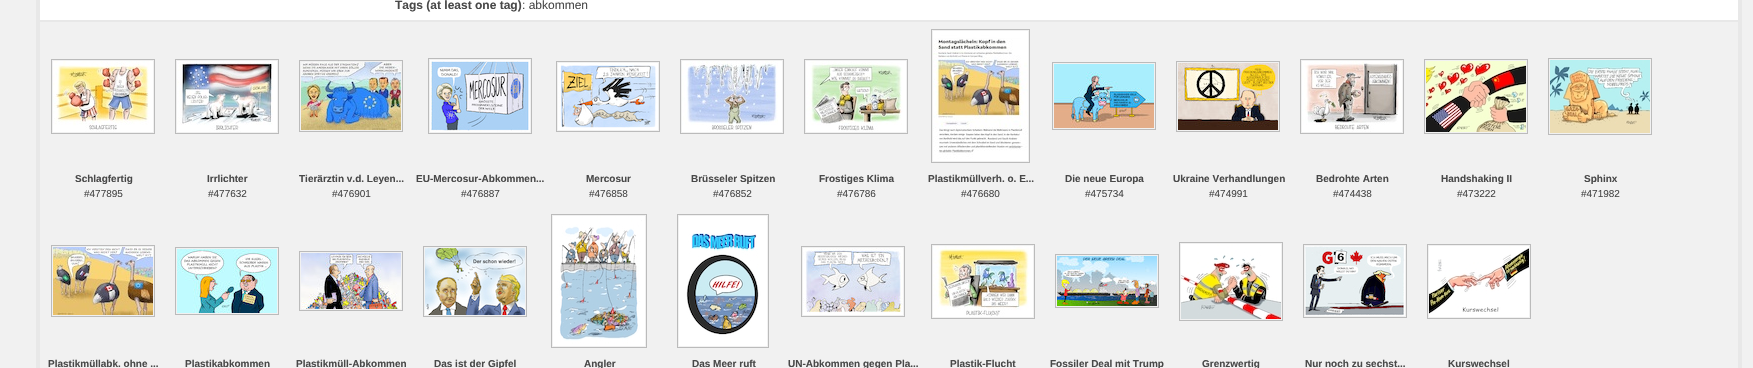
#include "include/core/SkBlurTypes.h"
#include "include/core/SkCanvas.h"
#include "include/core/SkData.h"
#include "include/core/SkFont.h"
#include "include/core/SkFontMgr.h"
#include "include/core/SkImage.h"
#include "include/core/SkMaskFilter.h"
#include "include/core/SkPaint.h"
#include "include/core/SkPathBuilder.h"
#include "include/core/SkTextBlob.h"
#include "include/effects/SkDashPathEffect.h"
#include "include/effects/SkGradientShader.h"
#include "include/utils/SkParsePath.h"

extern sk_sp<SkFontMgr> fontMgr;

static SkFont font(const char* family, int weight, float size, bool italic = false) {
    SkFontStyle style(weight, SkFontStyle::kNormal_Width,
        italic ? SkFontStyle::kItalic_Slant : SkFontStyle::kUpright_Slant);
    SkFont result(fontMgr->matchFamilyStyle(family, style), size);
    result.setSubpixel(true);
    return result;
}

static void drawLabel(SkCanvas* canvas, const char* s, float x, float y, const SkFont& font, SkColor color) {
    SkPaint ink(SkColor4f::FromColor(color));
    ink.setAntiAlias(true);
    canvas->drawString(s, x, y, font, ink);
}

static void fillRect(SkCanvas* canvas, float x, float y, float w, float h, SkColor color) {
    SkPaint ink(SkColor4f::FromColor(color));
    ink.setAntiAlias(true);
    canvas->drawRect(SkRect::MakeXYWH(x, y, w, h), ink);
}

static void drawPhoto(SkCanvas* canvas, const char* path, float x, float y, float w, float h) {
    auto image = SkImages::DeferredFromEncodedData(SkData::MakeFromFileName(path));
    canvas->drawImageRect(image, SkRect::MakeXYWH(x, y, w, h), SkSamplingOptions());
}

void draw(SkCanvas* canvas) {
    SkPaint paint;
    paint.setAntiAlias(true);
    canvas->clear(0xFFF1F1F1);
    paint.setStroke(true);
    paint.setStrokeWidth(4);
    paint.setColor(0xFFE8E8E8);
    canvas->drawRect(SkRect::MakeXYWH(38, -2, 1702, 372), paint);
    fillRect(canvas, 40, 0, 1698, 20, 0xFFFFFFFF);
    SkFont font1 = font("Liberation Sans", 700, 12);
    drawLabel(canvas, "Tags (at least one tag)", 395, 9, font1, 0xFF494949);
    SkFont font2 = font("Liberation Sans", 400, 12);
    drawLabel(canvas, ": abkommen", 522, 9, font2, 0xFF494949);
    fillRect(canvas, 40, 20, 1698, 2, 0xFFE8E8E8);
    paint.setStrokeWidth(1);
    paint.setColor(0xFFBBBBBB);
    canvas->drawRect(SkRect::MakeXYWH(51.5f, 59.5f, 103, 74), paint);
    drawPhoto(canvas, "assets/img1.png", 53, 61, 100, 71);
    SkFont font3 = font("Liberation Sans", 700, 10);
    drawLabel(canvas, "Schlagfertig", 75, 182, font3, 0xFF494949);
    SkFont font4 = font("Liberation Sans", 400, 10);
    drawLabel(canvas, "#477895", 84, 197, font4, 0xFF494949);
    canvas->drawRect(SkRect::MakeXYWH(175.5f, 59.5f, 103, 74), paint);
    drawPhoto(canvas, "assets/img2.png", 177, 61, 100, 71);
    drawLabel(canvas, "Irrlichter", 207, 182, font3, 0xFF494949);
    drawLabel(canvas, "#477632", 208, 197, font4, 0xFF494949);
    canvas->drawRect(SkRect::MakeXYWH(299.5f, 60.5f, 103, 71), paint);
    drawPhoto(canvas, "assets/img3.png", 301, 62, 100, 68);
    drawLabel(canvas, "Tierärztin v.d. Leyen...", 299, 182, font3, 0xFF494949);
    drawLabel(canvas, "#476901", 332, 197, font4, 0xFF494949);
    canvas->drawRect(SkRect::MakeXYWH(428.5f, 58.5f, 103, 75), paint);
    drawPhoto(canvas, "assets/img4.png", 430, 60, 100, 72);
    drawLabel(canvas, "EU-Mercosur-Abkommen...", 416, 182, font3, 0xFF494949);
    drawLabel(canvas, "#476887", 461, 197, font4, 0xFF494949);
    canvas->drawRect(SkRect::MakeXYWH(556.5f, 61.5f, 103, 70), paint);
    drawPhoto(canvas, "assets/img5.png", 558, 63, 100, 67);
    drawLabel(canvas, "Mercosur", 586, 182, font3, 0xFF494949);
    drawLabel(canvas, "#476858", 589, 197, font4, 0xFF494949);
    canvas->drawRect(SkRect::MakeXYWH(680.5f, 59.5f, 103, 74), paint);
    drawPhoto(canvas, "assets/img6.png", 682, 61, 100, 71);
    drawLabel(canvas, "Brüsseler Spitzen", 691, 182, font3, 0xFF494949);
    drawLabel(canvas, "#476852", 713, 197, font4, 0xFF494949);
    canvas->drawRect(SkRect::MakeXYWH(804.5f, 59.5f, 103, 74), paint);
    drawPhoto(canvas, "assets/img7.png", 806, 61, 100, 71);
    drawLabel(canvas, "Frostiges Klima", 819, 182, font3, 0xFF494949);
    drawLabel(canvas, "#476786", 837, 197, font4, 0xFF494949);
    canvas->drawRect(SkRect::MakeXYWH(931.5f, 29.5f, 98, 133), paint);
    drawPhoto(canvas, "assets/img8.png", 933, 31, 95, 130);
    drawLabel(canvas, "Plastikmüllverh. o. E...", 928, 182, font3, 0xFF494949);
    drawLabel(canvas, "#476680", 961, 197, font4, 0xFF494949);
    canvas->drawRect(SkRect::MakeXYWH(1052.5f, 62.5f, 103, 67), paint);
    drawPhoto(canvas, "assets/img9.png", 1054, 64, 100, 64);
    drawLabel(canvas, "Die neue Europa", 1065, 182, font3, 0xFF494949);
    drawLabel(canvas, "#475734", 1085, 197, font4, 0xFF494949);
    canvas->drawRect(SkRect::MakeXYWH(1176.5f, 61.5f, 103, 70), paint);
    drawPhoto(canvas, "assets/img10.png", 1178, 63, 100, 67);
    drawLabel(canvas, "Ukraine Verhandlungen", 1173, 182, font3, 0xFF494949);
    drawLabel(canvas, "#474991", 1209, 197, font4, 0xFF494949);
    canvas->drawRect(SkRect::MakeXYWH(1300.5f, 59.5f, 103, 74), paint);
    drawPhoto(canvas, "assets/img11.png", 1302, 61, 100, 71);
    drawLabel(canvas, "Bedrohte Arten", 1316, 182, font3, 0xFF494949);
    drawLabel(canvas, "#474438", 1333, 197, font4, 0xFF494949);
    canvas->drawRect(SkRect::MakeXYWH(1424.5f, 59.5f, 103, 74), paint);
    drawPhoto(canvas, "assets/img12.png", 1426, 61, 100, 71);
    drawLabel(canvas, "Handshaking II", 1441, 182, font3, 0xFF494949);
    drawLabel(canvas, "#473222", 1457, 197, font4, 0xFF494949);
    canvas->drawRect(SkRect::MakeXYWH(1548.5f, 58.5f, 103, 76), paint);
    drawPhoto(canvas, "assets/img13.png", 1550, 60, 100, 73);
    drawLabel(canvas, "Sphinx", 1584, 182, font3, 0xFF494949);
    drawLabel(canvas, "#471982", 1581, 197, font4, 0xFF494949);
    canvas->drawRect(SkRect::MakeXYWH(51.5f, 245.5f, 103, 71), paint);
    drawPhoto(canvas, "assets/img14.png", 53, 247, 100, 68);
    drawLabel(canvas, "Plastikmüllabk. ohne ...", 48, 367, font3, 0xFF494949);
    canvas->drawRect(SkRect::MakeXYWH(175.5f, 247.5f, 103, 67), paint);
    drawPhoto(canvas, "assets/img15.png", 177, 249, 100, 64);
    drawLabel(canvas, "Plastikabkommen", 185, 367, font3, 0xFF494949);
    canvas->drawRect(SkRect::MakeXYWH(299.5f, 251.5f, 103, 59), paint);
    drawPhoto(canvas, "assets/img16.png", 301, 253, 100, 56);
    drawLabel(canvas, "Plastikmüll-Abkommen", 296, 367, font3, 0xFF494949);
    canvas->drawRect(SkRect::MakeXYWH(423.5f, 246.5f, 103, 70), paint);
    drawPhoto(canvas, "assets/img17.png", 425, 248, 100, 67);
    drawLabel(canvas, "Das ist der Gipfel", 434, 367, font3, 0xFF494949);
    canvas->drawRect(SkRect::MakeXYWH(551.5f, 214.5f, 95, 133), paint);
    drawPhoto(canvas, "assets/img18.png", 553, 216, 92, 130);
    drawLabel(canvas, "Angler", 584, 367, font3, 0xFF494949);
    canvas->drawRect(SkRect::MakeXYWH(677.5f, 214.5f, 91, 133), paint);
    drawPhoto(canvas, "assets/img19.png", 679, 216, 88, 130);
    drawLabel(canvas, "Das Meer ruft", 692, 367, font3, 0xFF494949);
    canvas->drawRect(SkRect::MakeXYWH(801.5f, 246.5f, 103, 70), paint);
    drawPhoto(canvas, "assets/img20.png", 803, 248, 100, 67);
    drawLabel(canvas, "UN-Abkommen gegen Pla...", 788, 367, font3, 0xFF494949);
    canvas->drawRect(SkRect::MakeXYWH(931.5f, 244.5f, 103, 74), paint);
    drawPhoto(canvas, "assets/img21.png", 933, 246, 100, 71);
    drawLabel(canvas, "Plastik-Flucht", 950, 367, font3, 0xFF494949);
    canvas->drawRect(SkRect::MakeXYWH(1055.5f, 254.5f, 103, 53), paint);
    drawPhoto(canvas, "assets/img22.png", 1057, 256, 100, 50);
    drawLabel(canvas, "Fossiler Deal mit Trump", 1050, 367, font3, 0xFF494949);
    canvas->drawRect(SkRect::MakeXYWH(1179.5f, 242.5f, 103, 78), paint);
    drawPhoto(canvas, "assets/img23.png", 1181, 244, 100, 75);
    drawLabel(canvas, "Grenzwertig", 1202, 367, font3, 0xFF494949);
    canvas->drawRect(SkRect::MakeXYWH(1303.5f, 244.5f, 103, 73), paint);
    drawPhoto(canvas, "assets/img24.png", 1305, 246, 100, 70);
    drawLabel(canvas, "Nur noch zu sechst...", 1305, 367, font3, 0xFF494949);
    canvas->drawRect(SkRect::MakeXYWH(1427.5f, 244.5f, 103, 74), paint);
    drawPhoto(canvas, "assets/img25.png", 1429, 246, 100, 71);
    drawLabel(canvas, "Kurswechsel", 1448, 367, font3, 0xFF494949);
}
